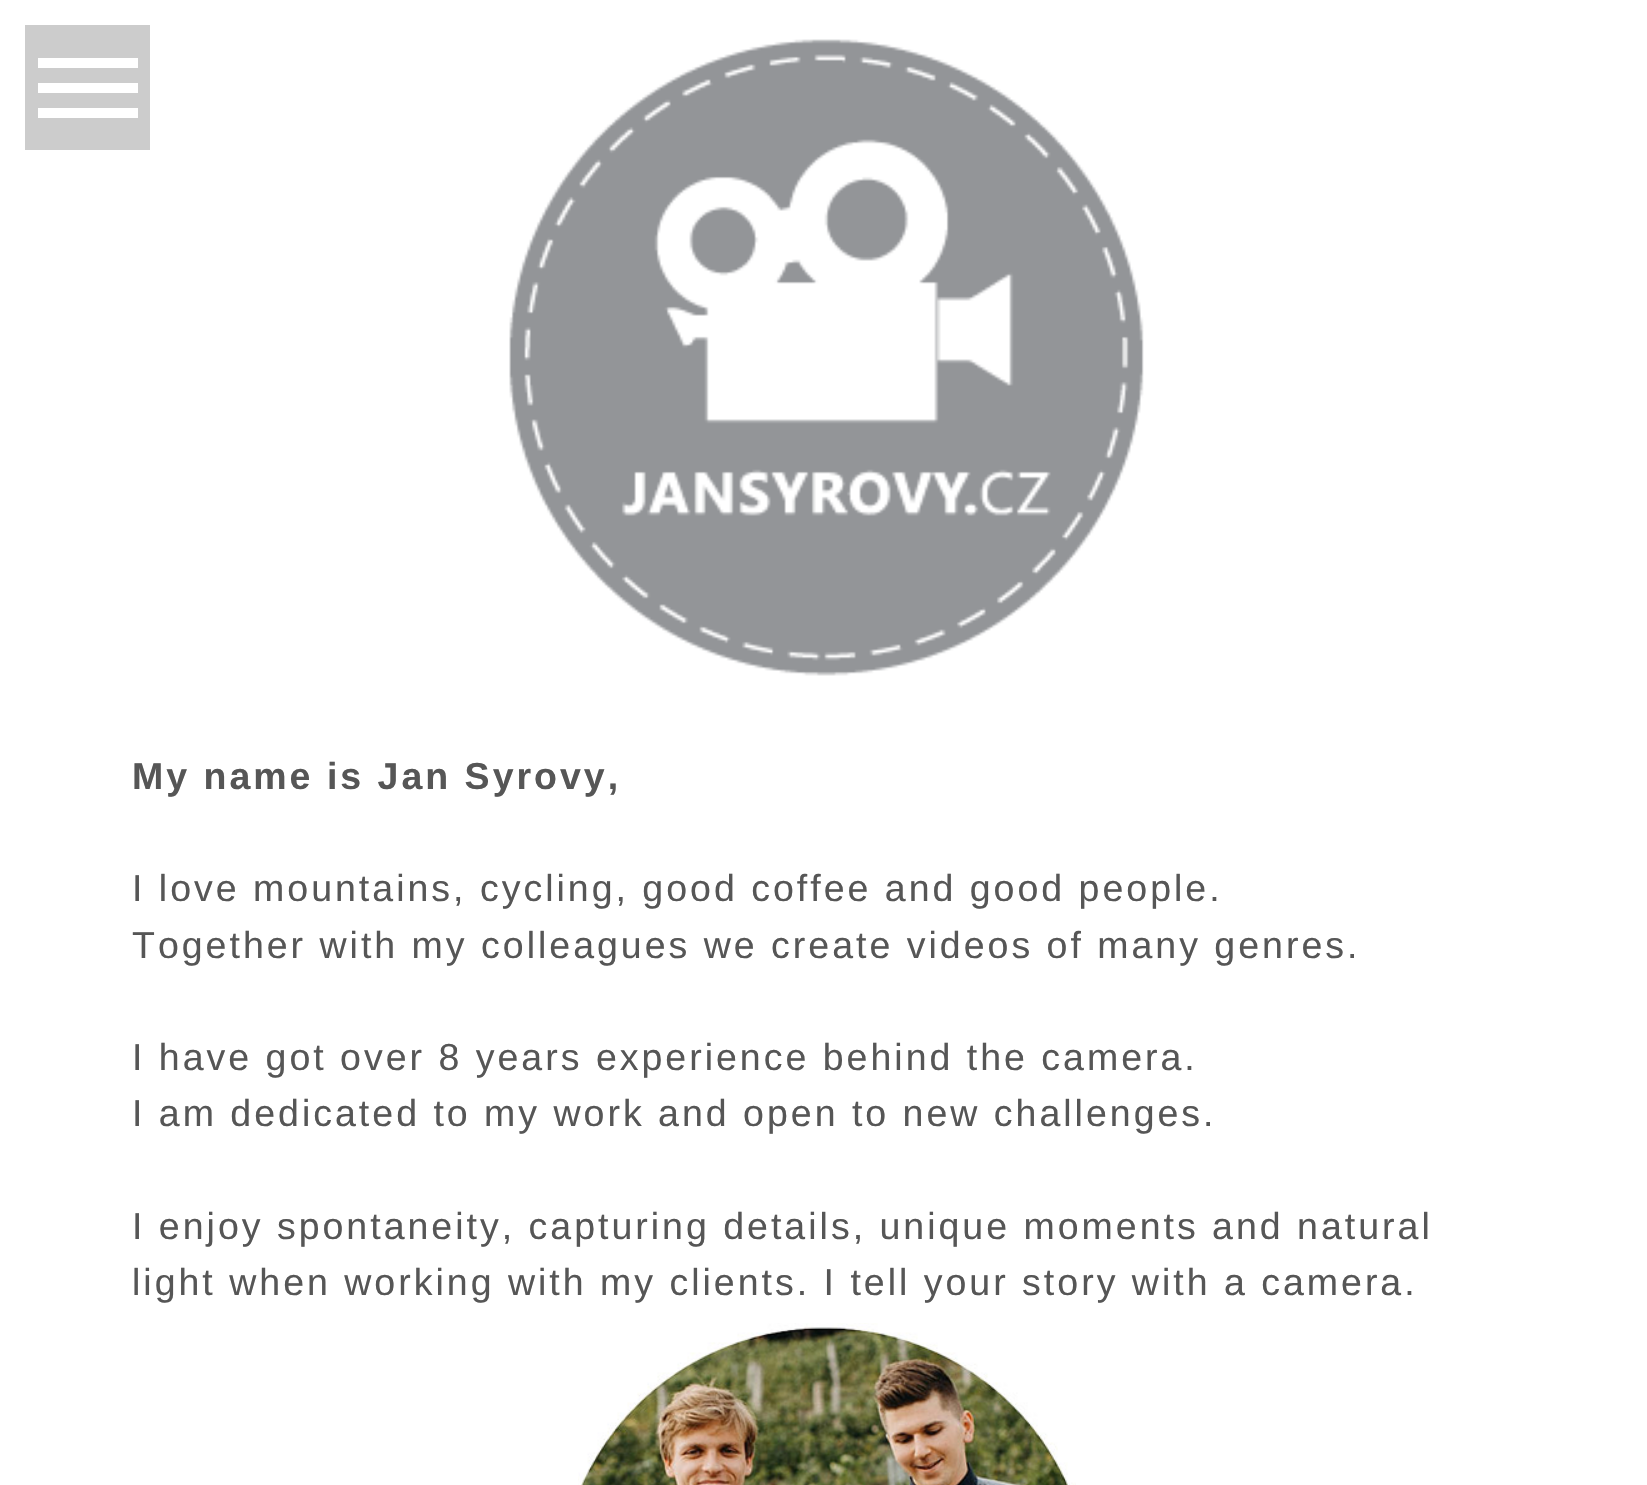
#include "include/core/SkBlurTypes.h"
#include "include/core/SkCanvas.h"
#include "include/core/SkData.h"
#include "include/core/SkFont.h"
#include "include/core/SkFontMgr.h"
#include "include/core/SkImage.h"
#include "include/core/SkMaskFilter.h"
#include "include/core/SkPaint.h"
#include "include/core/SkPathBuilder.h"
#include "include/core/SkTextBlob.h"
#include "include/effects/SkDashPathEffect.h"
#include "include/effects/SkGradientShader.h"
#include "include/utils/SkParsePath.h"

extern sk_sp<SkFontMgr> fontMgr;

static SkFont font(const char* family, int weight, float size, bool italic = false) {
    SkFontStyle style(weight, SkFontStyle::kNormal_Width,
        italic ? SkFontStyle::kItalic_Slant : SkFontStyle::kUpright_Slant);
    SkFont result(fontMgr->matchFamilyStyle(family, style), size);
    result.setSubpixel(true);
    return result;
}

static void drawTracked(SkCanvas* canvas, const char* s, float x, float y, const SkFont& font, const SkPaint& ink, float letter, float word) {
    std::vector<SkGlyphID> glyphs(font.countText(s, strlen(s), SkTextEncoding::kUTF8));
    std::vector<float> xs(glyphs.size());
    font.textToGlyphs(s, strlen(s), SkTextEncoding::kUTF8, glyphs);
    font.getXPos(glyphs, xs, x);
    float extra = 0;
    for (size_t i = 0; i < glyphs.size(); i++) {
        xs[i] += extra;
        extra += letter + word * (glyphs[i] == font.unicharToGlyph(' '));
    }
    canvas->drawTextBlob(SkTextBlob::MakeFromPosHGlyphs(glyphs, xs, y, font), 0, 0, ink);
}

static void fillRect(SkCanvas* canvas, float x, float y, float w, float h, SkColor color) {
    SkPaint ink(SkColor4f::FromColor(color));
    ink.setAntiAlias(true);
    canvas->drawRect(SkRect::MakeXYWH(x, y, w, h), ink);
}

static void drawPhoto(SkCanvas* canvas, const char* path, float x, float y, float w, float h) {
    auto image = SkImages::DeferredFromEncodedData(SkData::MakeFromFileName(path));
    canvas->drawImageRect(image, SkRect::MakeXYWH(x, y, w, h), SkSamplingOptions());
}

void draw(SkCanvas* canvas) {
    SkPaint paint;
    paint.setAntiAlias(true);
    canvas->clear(0xFFFFFFFF);
    fillRect(canvas, 25, 25, 125, 125, 0xFFCCCCCC);
    fillRect(canvas, 38, 58, 100, 10, 0xFFFFFFFF);
    fillRect(canvas, 38, 83, 100, 10, 0xFFFFFFFF);
    fillRect(canvas, 38, 108, 100, 10, 0xFFFFFFFF);
    drawPhoto(canvas, "assets/img1.png", 509, 39, 635, 637);
    SkFont font1 = font("Liberation Sans", 700, 37.5f);
    paint.setColor(0xFF565656);
    drawTracked(canvas, "My name is Jan Syrovy,", 132, 789, font1, paint, 3, 0);
    SkFont font2 = font("Liberation Sans", 400, 37.5f);
    drawTracked(canvas, "I love mountains, cycling, good coffee and good people.", 132, 901, font2, paint, 3, 0);
    drawTracked(canvas, "Together with my colleagues we create videos of many genres.", 132, 958, font2, paint, 3, 0);
    drawTracked(canvas, "I have got over 8 years experience behind the camera.", 132, 1070, font2, paint, 3, 0);
    drawTracked(canvas, "I am dedicated to my work and open to new challenges.", 132, 1126, font2, paint, 3, 0);
    drawTracked(canvas, "I enjoy spontaneity, capturing details, unique moments and natural", 132, 1239, font2, paint, 3, 0);
    drawTracked(canvas, "light when working with my clients. I tell your story with a camera.", 132, 1295, font2, paint, 3, 0);
    drawPhoto(canvas, "assets/img2.png", 578, 1323, 498, 162);
}
